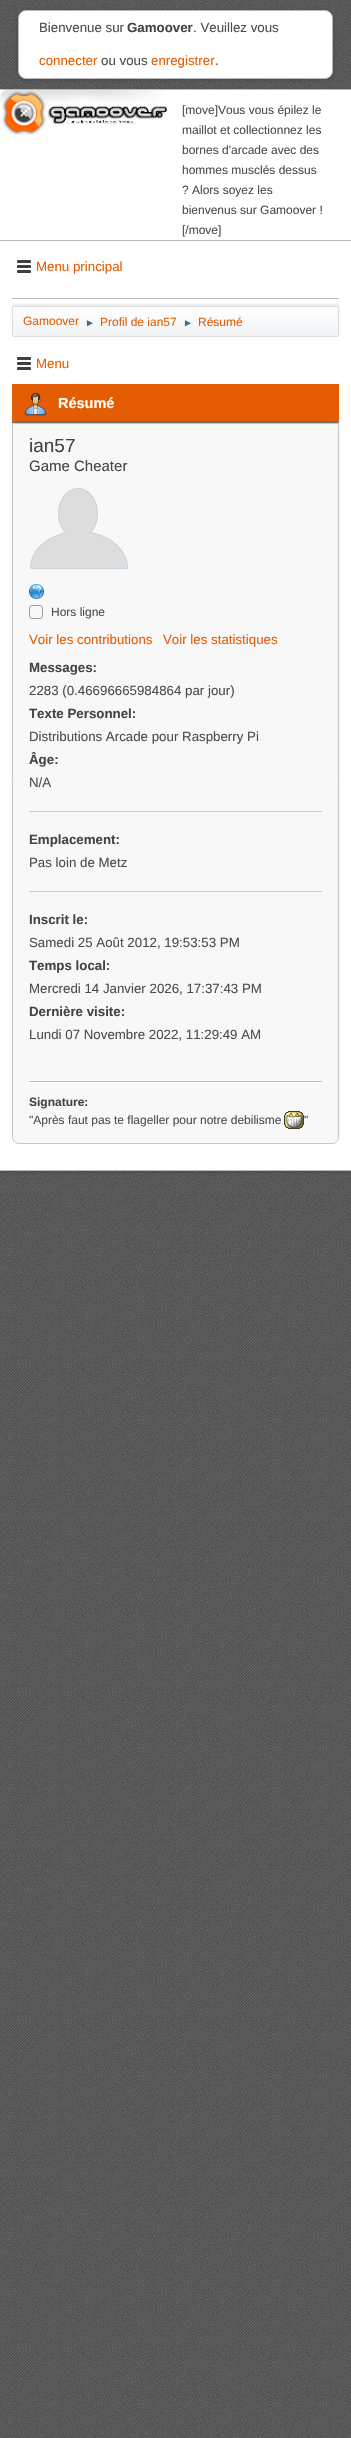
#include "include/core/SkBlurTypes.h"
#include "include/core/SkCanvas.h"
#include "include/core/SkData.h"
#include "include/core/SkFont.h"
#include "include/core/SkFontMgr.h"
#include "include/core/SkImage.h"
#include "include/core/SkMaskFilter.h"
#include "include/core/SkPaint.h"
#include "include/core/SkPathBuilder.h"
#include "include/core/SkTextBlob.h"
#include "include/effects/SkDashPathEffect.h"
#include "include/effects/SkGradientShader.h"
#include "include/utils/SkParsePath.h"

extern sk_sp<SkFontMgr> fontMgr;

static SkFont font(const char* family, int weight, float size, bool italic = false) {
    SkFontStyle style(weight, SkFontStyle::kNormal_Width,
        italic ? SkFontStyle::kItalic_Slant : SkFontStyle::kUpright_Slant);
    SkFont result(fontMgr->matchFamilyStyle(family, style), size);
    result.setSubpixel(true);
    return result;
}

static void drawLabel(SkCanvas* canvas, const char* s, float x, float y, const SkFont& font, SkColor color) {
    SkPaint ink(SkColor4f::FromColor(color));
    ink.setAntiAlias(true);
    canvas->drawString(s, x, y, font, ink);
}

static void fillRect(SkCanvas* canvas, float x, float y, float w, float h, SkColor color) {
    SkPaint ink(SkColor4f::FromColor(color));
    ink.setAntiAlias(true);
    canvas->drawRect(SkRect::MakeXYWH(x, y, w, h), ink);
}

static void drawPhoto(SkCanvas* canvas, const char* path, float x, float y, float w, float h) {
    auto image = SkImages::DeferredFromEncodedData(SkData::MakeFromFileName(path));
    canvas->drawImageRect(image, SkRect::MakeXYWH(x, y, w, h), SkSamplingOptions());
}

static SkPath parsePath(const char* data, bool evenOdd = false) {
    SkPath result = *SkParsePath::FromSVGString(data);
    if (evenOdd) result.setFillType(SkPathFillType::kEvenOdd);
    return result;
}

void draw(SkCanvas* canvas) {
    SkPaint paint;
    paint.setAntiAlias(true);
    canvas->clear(0xFFFFFFFF);
    drawPhoto(canvas, "assets/img1.png", 0, 0, 351, 2438);
    paint.setColor(0x29000000);
    paint.setMaskFilter(SkMaskFilter::MakeBlur(kNormal_SkBlurStyle, 2));
    canvas->drawRoundRect(SkRect::MakeXYWH(18, 11, 315, 69), 8, 8, paint);
    paint.setMaskFilter(nullptr);
    paint.setColor(0xFFFFFFFF);
    canvas->drawRoundRect(SkRect::MakeXYWH(18.5f, 10.5f, 314, 68), 7.5f, 7.5f, paint);
    paint.setStroke(true);
    paint.setStrokeWidth(1);
    paint.setColor(0xFFB8B8B8);
    canvas->drawRoundRect(SkRect::MakeXYWH(18.5f, 10.5f, 314, 68), 7.5f, 7.5f, paint);
    SkFont font1 = font("Liberation Sans", 400, 13.3f);
    drawLabel(canvas, "Bienvenue sur", 39, 32, font1, 0xFF4D4D4D);
    SkFont font2 = font("Liberation Sans", 700, 13.3f);
    drawLabel(canvas, "Gamoover", 127, 32, font2, 0xFF444444);
    drawLabel(canvas, ". Veuillez vous", 193, 32, font1, 0xFF4D4D4D);
    drawLabel(canvas, "connecter", 39, 65, font1, 0xFFE45D03);
    drawLabel(canvas, "ou vous", 101, 65, font1, 0xFF4D4D4D);
    drawLabel(canvas, "enregistrer", 151, 65, font1, 0xFFE45D03);
    drawLabel(canvas, ".", 215, 65, font1, 0xFF4D4D4D);
    paint.setStroke(false);
    paint.setColor(0x24000000);
    paint.setMaskFilter(SkMaskFilter::MakeBlur(kNormal_SkBlurStyle, 1.5f));
    canvas->drawRect(SkRect::MakeXYWH(0, 91, 351, 1082), paint);
    paint.setMaskFilter(nullptr);
    fillRect(canvas, 0, 90, 351, 1080, 0xFFFFFFFF);
    fillRect(canvas, 0, 89, 351, 1, 0xFFB8B8B8);
    fillRect(canvas, 0, 1170, 351, 1, 0xFFB8B8B8);
    fillRect(canvas, 0, 240, 351, 1, 0xFFBBBBBB);
    drawPhoto(canvas, "assets/img2.png", 0, 90, 167, 45);
    SkFont font3 = font("Liberation Sans", 400, 12);
    drawLabel(canvas, "[move]Vous vous épilez le", 182, 114, font3, 0xFF4D4D4D);
    drawLabel(canvas, "maillot et collectionnez les", 182, 134, font3, 0xFF4D4D4D);
    drawLabel(canvas, "bornes d'arcade avec des", 182, 154, font3, 0xFF4D4D4D);
    drawLabel(canvas, "hommes musclés dessus", 182, 174, font3, 0xFF4D4D4D);
    drawLabel(canvas, "? Alors soyez les", 182, 194, font3, 0xFF4D4D4D);
    drawLabel(canvas, "bienvenus sur Gamoover !", 182, 214, font3, 0xFF4D4D4D);
    drawLabel(canvas, "[/move]", 182, 234, font3, 0xFF4D4D4D);
    drawPhoto(canvas, "assets/img3.png", 17, 260, 14, 13);
    drawLabel(canvas, "Menu principal", 36, 271, font1, 0xFFE45D03);
    fillRect(canvas, 12, 298, 327, 1, 0xFFBBBBBB);
    paint.setColor(0x14000000);
    paint.setMaskFilter(SkMaskFilter::MakeBlur(kNormal_SkBlurStyle, 1));
    canvas->drawRoundRect(SkRect::MakeXYWH(12, 304, 327, 31), 2, 2, paint);
    paint.setMaskFilter(nullptr);
    canvas->save();
    canvas->clipPath(parsePath("M14 306H337C338 306 339 307 339 308V335C339 336 338 337 337 337H14C13 337 12 336 12 335V308C12 307 13 306 14 306Z"), true);
    {
        const SkColor colors[] = {0xFFFFFFFF, 0xFFF1F3F5};
        const float stops[] = {0, 0.95f};
        const SkPoint ends[] = {{176, 307}, {176, 336}};
        paint.setShader(SkGradientShader::MakeLinear(ends, colors, stops, 2, SkTileMode::kClamp));
        paint.setAlpha(255);
    }
    canvas->drawRect(SkRect::MakeXYWH(12, 307, 327, 29), paint);
    canvas->restore();
    paint.setStroke(true);
    paint.setShader(nullptr);
    paint.setColor(0xFFDDDDDD);
    canvas->drawRoundRect(SkRect::MakeXYWH(12.5f, 306.5f, 326, 30), 1.5f, 1.5f, paint);
    drawLabel(canvas, "Gamoover", 23, 325, font3, 0xFFE45D03);
    SkFont font4 = font("Liberation Sans", 400, 10);
    drawLabel(canvas, "►", 85, 326, font4, 0xFF3F6B8C);
    drawLabel(canvas, "Profil de ian57", 100, 326, font3, 0xFFE45D03);
    drawLabel(canvas, "►", 183, 326, font4, 0xFF3F6B8C);
    drawLabel(canvas, "Résumé", 198, 326, font3, 0xFFE45D03);
    drawPhoto(canvas, "assets/img3.png", 17, 357, 14, 13);
    drawLabel(canvas, "Menu", 36, 368, font1, 0xFFE45D03);
    fillRect(canvas, 12, 384, 327, 38, 0xFFE45D03);
    fillRect(canvas, 12, 422, 327, 1, 0xFF777777);
    drawPhoto(canvas, "assets/img4.png", 24, 393, 23, 23);
    SkFont font5 = font("Liberation Sans", 700, 14.5f);
    drawLabel(canvas, "Résumé", 58, 408, font5, 0xFFFFFFFF);
    paint.setStroke(false);
    paint.setColor(0x1A000000);
    paint.setMaskFilter(SkMaskFilter::MakeBlur(kNormal_SkBlurStyle, 1));
    canvas->drawRoundRect(SkRect::MakeXYWH(12, 421, 327, 721), 7, 7, paint);
    paint.setMaskFilter(nullptr);
    paint.setColor(0xFFF8F8F8);
    canvas->drawPath(parsePath("M12.5 423.5H338.5V1137C338.5 1140.5 335.5 1143.5 332 1143.5H19C15.5 1143.5 12.5 1140.5 12.5 1137Z"), paint);
    paint.setStroke(true);
    paint.setColor(0xFFC5C5C5);
    canvas->drawPath(parsePath("M12.5 423.5H338.5V1137C338.5 1140.5 335.5 1143.5 332 1143.5H19C15.5 1143.5 12.5 1140.5 12.5 1137Z"), paint);
    SkFont font6 = font("Liberation Sans", 400, 19);
    drawLabel(canvas, "ian57", 29, 452, font6, 0xFF444444);
    SkFont font7 = font("Liberation Sans", 400, 15);
    drawLabel(canvas, "Game Cheater", 29, 471, font7, 0xFF444444);
    drawPhoto(canvas, "assets/img5.png", 30, 488, 98, 81);
    drawPhoto(canvas, "assets/img6.png", 29, 584, 15, 15);
    paint.setColor(0xFF9D9D9D);
    canvas->drawRoundRect(SkRect::MakeXYWH(29.5f, 605.5f, 13, 13), 2.5f, 2.5f, paint);
    drawLabel(canvas, "Hors ligne", 51, 616, font3, 0xFF4D4D4D);
    drawLabel(canvas, "Voir les contributions", 29, 644, font1, 0xFFE45D03);
    drawLabel(canvas, "Voir les statistiques", 163, 644, font1, 0xFFE45D03);
    fillRect(canvas, 29, 811, 293, 1, 0xFFCCCCCC);
    drawLabel(canvas, "Messages:", 29, 672, font2, 0xFF444444);
    drawLabel(canvas, "2283 (0.46696665984864 par jour)", 29, 695, font1, 0xFF4D4D4D);
    drawLabel(canvas, "Texte Personnel:", 29, 718, font2, 0xFF444444);
    drawLabel(canvas, "Distributions Arcade pour Raspberry Pi", 29, 741, font1, 0xFF4D4D4D);
    drawLabel(canvas, "Âge:", 29, 764, font2, 0xFF444444);
    drawLabel(canvas, "N/A", 29, 787, font1, 0xFF4D4D4D);
    fillRect(canvas, 29, 891, 293, 1, 0xFFCCCCCC);
    drawLabel(canvas, "Emplacement:", 29, 844, font2, 0xFF444444);
    drawLabel(canvas, "Pas loin de Metz", 29, 867, font1, 0xFF4D4D4D);
    drawLabel(canvas, "Inscrit le:", 29, 924, font2, 0xFF444444);
    drawLabel(canvas, "Samedi 25 Août 2012, 19:53:53 PM", 29, 947, font1, 0xFF4D4D4D);
    drawLabel(canvas, "Temps local:", 29, 970, font2, 0xFF444444);
    drawLabel(canvas, "Mercredi 14 Janvier 2026, 17:37:43 PM", 29, 993, font1, 0xFF4D4D4D);
    drawLabel(canvas, "Dernière visite:", 29, 1016, font2, 0xFF444444);
    drawLabel(canvas, "Lundi 07 Novembre 2022, 11:29:49 AM", 29, 1039, font1, 0xFF4D4D4D);
    fillRect(canvas, 29, 1082, 293, 1, 0xFFFFFFFF);
    fillRect(canvas, 29, 1081, 293, 1, 0xFFBFBFBF);
    SkFont font8 = font("Liberation Sans", 700, 12);
    drawLabel(canvas, "Signature:", 29, 1106, font8, 0xFF444444);
    drawLabel(canvas, "\"Après faut pas te flageller pour notre debilisme", 29, 1124, font3, 0xFF4D4D4D);
    drawPhoto(canvas, "assets/img7.png", 284, 1111, 20, 18);
    drawLabel(canvas, "\"", 304, 1124, font3, 0xFF4D4D4D);
}
